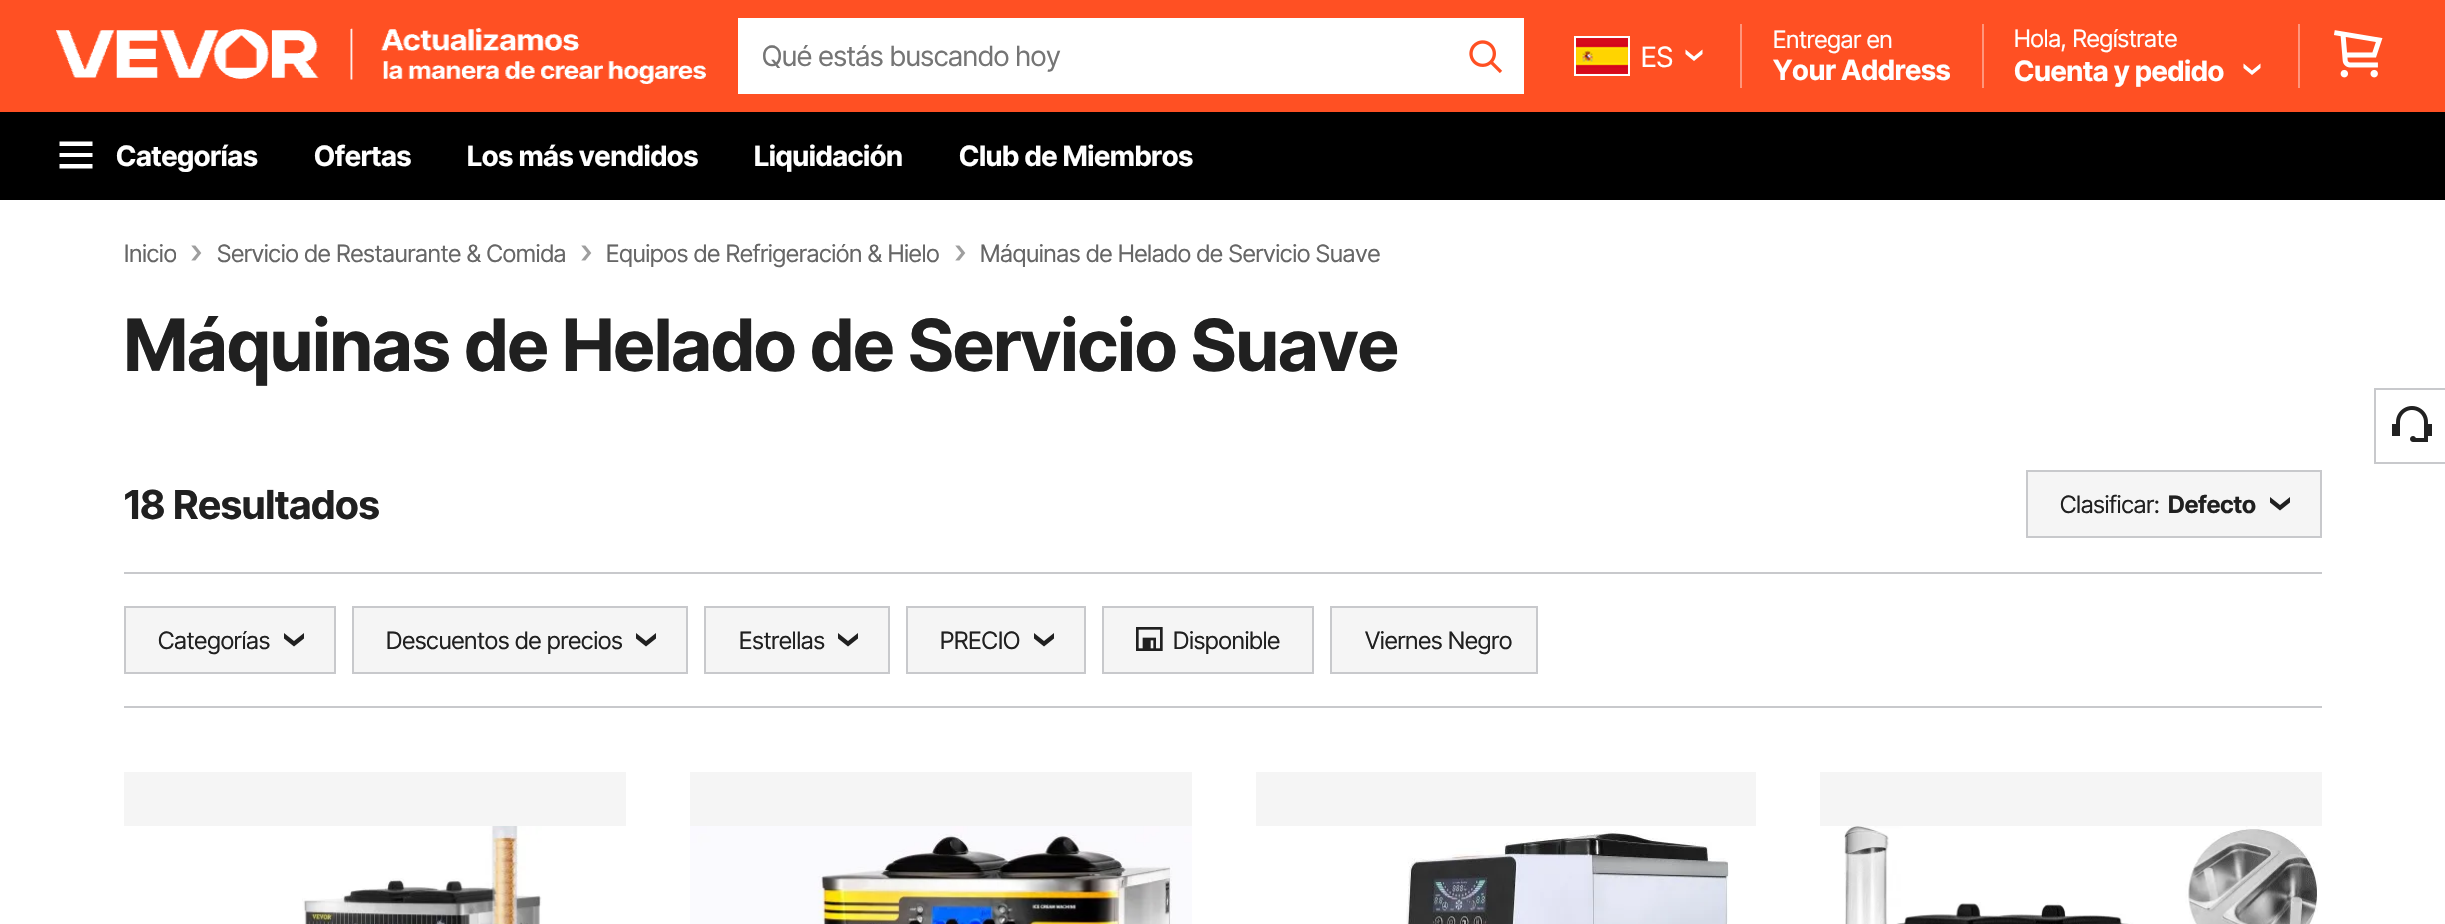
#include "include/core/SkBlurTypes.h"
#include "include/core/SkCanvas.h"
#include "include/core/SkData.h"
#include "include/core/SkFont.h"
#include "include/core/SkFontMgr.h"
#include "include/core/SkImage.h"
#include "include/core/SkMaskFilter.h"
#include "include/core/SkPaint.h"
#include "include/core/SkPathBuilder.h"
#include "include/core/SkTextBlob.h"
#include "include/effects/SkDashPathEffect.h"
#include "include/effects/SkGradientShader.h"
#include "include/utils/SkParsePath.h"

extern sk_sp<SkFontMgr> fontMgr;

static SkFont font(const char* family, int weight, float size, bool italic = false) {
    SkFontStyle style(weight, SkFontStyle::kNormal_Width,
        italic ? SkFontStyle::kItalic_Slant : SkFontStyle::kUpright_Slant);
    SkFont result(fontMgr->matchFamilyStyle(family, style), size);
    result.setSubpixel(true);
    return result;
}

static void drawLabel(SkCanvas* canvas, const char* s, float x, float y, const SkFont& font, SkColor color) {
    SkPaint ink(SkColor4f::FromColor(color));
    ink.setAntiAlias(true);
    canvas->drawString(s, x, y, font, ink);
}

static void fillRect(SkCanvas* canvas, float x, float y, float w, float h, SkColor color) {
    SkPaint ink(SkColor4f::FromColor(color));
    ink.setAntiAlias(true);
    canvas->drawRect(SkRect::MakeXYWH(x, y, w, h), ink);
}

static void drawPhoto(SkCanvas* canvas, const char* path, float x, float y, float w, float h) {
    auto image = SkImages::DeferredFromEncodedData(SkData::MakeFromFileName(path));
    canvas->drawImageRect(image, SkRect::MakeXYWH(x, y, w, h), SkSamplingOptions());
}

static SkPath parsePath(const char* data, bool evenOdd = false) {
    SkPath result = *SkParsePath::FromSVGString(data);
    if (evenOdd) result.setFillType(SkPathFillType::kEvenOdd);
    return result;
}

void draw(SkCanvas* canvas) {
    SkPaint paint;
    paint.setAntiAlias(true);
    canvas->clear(0xFFFF5023);
    drawPhoto(canvas, "assets/img1.png", 56, 28, 650, 56);
    fillRect(canvas, 738, 18, 786, 76, 0xFFFFFFFF);
    SkFont font1 = font("Inter Tight", 400, 28);
    drawLabel(canvas, "Qué estás buscando hoy", 762, 66, font1, 0xFF757575);
    drawPhoto(canvas, "assets/img2.png", 1469, 40, 34, 34);
    paint.setStroke(true);
    paint.setStrokeWidth(2);
    paint.setColor(0xFFFFFFFF);
    canvas->drawRect(SkRect::MakeXYWH(1575, 37, 54, 38), paint);
    drawPhoto(canvas, "assets/img3.png", 1576, 38, 52, 36);
    drawLabel(canvas, "ES", 1641, 67, font1, 0xFFFFFFFF);
    paint.setStroke(false);
    canvas->drawPath(parsePath("M1702.5 49.5V54L1694 61L1685.5 54V49.5L1694 56.5Z"), paint);
    fillRect(canvas, 1740, 24, 2, 64, 0xFFFF967B);
    SkFont font2 = font("Inter Tight", 400, 24);
    drawLabel(canvas, "Entregar en", 1773, 48, font2, 0xFFFFFFFF);
    SkFont font3 = font("Inter Tight", 700, 28);
    drawLabel(canvas, "Your Address", 1773, 80, font3, 0xFFFFFFFF);
    fillRect(canvas, 1982, 24, 2, 64, 0xFFFF967B);
    drawLabel(canvas, "Hola, Regístrate", 2014, 47, font2, 0xFFFFFFFF);
    drawLabel(canvas, "Cuenta y pedido", 2014, 81, font3, 0xFFFFFFFF);
    canvas->drawPath(parsePath("M2260.5 63.5V68L2252 75L2243.5 68V63.5L2252 70.5Z"), paint);
    fillRect(canvas, 2298, 24, 2, 64, 0xFFFF967B);
    drawPhoto(canvas, "assets/img4.png", 2334, 30, 49, 48);
    fillRect(canvas, 0, 112, 2445, 88, 0xFF000000);
    canvas->drawPath(parsePath("M59.5 141.5H92.5V146H59.5ZM59.5 164H92.5V168.5H59.5ZM92.5 153V157H59.5V153Z"), paint);
    drawLabel(canvas, "Categorías", 116, 166, font3, 0xFFFFFFFF);
    drawLabel(canvas, "Ofertas", 314, 166, font3, 0xFFFFFFFF);
    drawLabel(canvas, "Los más vendidos", 467, 166, font3, 0xFFFFFFFF);
    drawLabel(canvas, "Liquidación", 754, 166, font3, 0xFFFFFFFF);
    drawLabel(canvas, "Club de Miembros", 959, 166, font3, 0xFFFFFFFF);
    fillRect(canvas, 0, 200, 2445, 724, 0xFFFFFFFF);
    canvas->save();
    canvas->clipRect(SkRect::MakeXYWH(124, 240, 52, 28));
    drawLabel(canvas, "Inicio", 124, 262, font2, 0xFF666666);
    canvas->restore();
    drawPhoto(canvas, "assets/img5.png", 191, 245, 11, 16);
    drawLabel(canvas, "Servicio de Restaurante & Comida", 217, 262, font2, 0xFF666666);
    drawPhoto(canvas, "assets/img5.png", 581, 245, 11, 16);
    drawLabel(canvas, "Equipos de Refrigeración & Hielo", 606, 262, font2, 0xFF666666);
    drawPhoto(canvas, "assets/img5.png", 955, 245, 11, 16);
    drawLabel(canvas, "Máquinas de Helado de Servicio Suave", 980, 262, font2, 0xFF666666);
    SkFont font4 = font("Inter Tight", 700, 72);
    drawLabel(canvas, "Máquinas de Helado de Servicio Suave", 124, 371, font4, 0xFF202020);
    SkFont font5 = font("Inter Tight", 700, 40);
    drawLabel(canvas, "18 Resultados", 124, 519, font5, 0xFF202020);
    paint.setColor(0xFFF5F5F5);
    canvas->drawRect(SkRect::MakeXYWH(2027, 471, 294, 66), paint);
    paint.setStroke(true);
    paint.setColor(0xFFC8C9CC);
    canvas->drawRect(SkRect::MakeXYWH(2027, 471, 294, 66), paint);
    drawLabel(canvas, "Clasificar:", 2060, 513, font2, 0xFF202020);
    SkFont font6 = font("Inter Tight", 700, 24);
    drawLabel(canvas, "Defecto", 2168, 513, font6, 0xFF202020);
    paint.setStroke(false);
    paint.setColor(0xFF202020);
    canvas->drawPath(parsePath("M2290 497V502.5L2280 510.5L2270 502.5V497L2280 505Z"), paint);
    fillRect(canvas, 124, 572, 2198, 2, 0xFFC8C9CC);
    fillRect(canvas, 124, 706, 2198, 2, 0xFFC8C9CC);
    paint.setColor(0xFFF5F5F5);
    canvas->drawRect(SkRect::MakeXYWH(125, 607, 210, 66), paint);
    paint.setStroke(true);
    paint.setColor(0xFFC8C9CC);
    canvas->drawRect(SkRect::MakeXYWH(125, 607, 210, 66), paint);
    drawLabel(canvas, "Categorías", 158, 649, font2, 0xFF202020);
    paint.setStroke(false);
    paint.setColor(0xFF202020);
    canvas->drawPath(parsePath("M304 633V638.5L294 646.5L284 638.5V633L294 641Z"), paint);
    paint.setColor(0xFFF5F5F5);
    canvas->drawRect(SkRect::MakeXYWH(353, 607, 334, 66), paint);
    paint.setStroke(true);
    paint.setColor(0xFFC8C9CC);
    canvas->drawRect(SkRect::MakeXYWH(353, 607, 334, 66), paint);
    drawLabel(canvas, "Descuentos de precios", 386, 649, font2, 0xFF202020);
    paint.setStroke(false);
    paint.setColor(0xFF202020);
    canvas->drawPath(parsePath("M656 633V638.5L646 646.5L636 638.5V633L646 641Z"), paint);
    paint.setColor(0xFFF5F5F5);
    canvas->drawRect(SkRect::MakeXYWH(705, 607, 184, 66), paint);
    paint.setStroke(true);
    paint.setColor(0xFFC8C9CC);
    canvas->drawRect(SkRect::MakeXYWH(705, 607, 184, 66), paint);
    drawLabel(canvas, "Estrellas", 739, 649, font2, 0xFF202020);
    paint.setStroke(false);
    paint.setColor(0xFF202020);
    canvas->drawPath(parsePath("M858 633V638.5L848 646.5L838 638.5V633L848 641Z"), paint);
    paint.setColor(0xFFF5F5F5);
    canvas->drawRect(SkRect::MakeXYWH(907, 607, 178, 66), paint);
    paint.setStroke(true);
    paint.setColor(0xFFC8C9CC);
    canvas->drawRect(SkRect::MakeXYWH(907, 607, 178, 66), paint);
    drawLabel(canvas, "PRECIO", 940, 649, font2, 0xFF202020);
    paint.setStroke(false);
    paint.setColor(0xFF202020);
    canvas->drawPath(parsePath("M1054 633V638.5L1044 646.5L1034 638.5V633L1044 641Z"), paint);
    paint.setColor(0xFFF5F5F5);
    canvas->drawRect(SkRect::MakeXYWH(1103, 607, 210, 66), paint);
    paint.setStroke(true);
    paint.setColor(0xFFC8C9CC);
    canvas->drawRect(SkRect::MakeXYWH(1103, 607, 210, 66), paint);
    drawPhoto(canvas, "assets/img6.png", 1136, 627, 27, 24);
    drawLabel(canvas, "Disponible", 1173, 649, font2, 0xFF202020);
    paint.setStroke(false);
    paint.setColor(0xFFF5F5F5);
    canvas->drawRect(SkRect::MakeXYWH(1331, 607, 206, 66), paint);
    paint.setStroke(true);
    paint.setColor(0xFFC8C9CC);
    canvas->drawRect(SkRect::MakeXYWH(1331, 607, 206, 66), paint);
    drawLabel(canvas, "Viernes Negro", 1365, 649, font2, 0xFF202020);
    fillRect(canvas, 124, 772, 502, 54, 0xFFF5F5F5);
    drawPhoto(canvas, "assets/img7.png", 302, 826, 240, 98);
    fillRect(canvas, 690, 772, 502, 54, 0xFFF5F5F5);
    drawPhoto(canvas, "assets/img8.png", 690, 826, 502, 98);
    fillRect(canvas, 1256, 772, 500, 54, 0xFFF5F5F5);
    drawPhoto(canvas, "assets/img9.png", 1406, 830, 323, 94);
    fillRect(canvas, 1820, 772, 502, 54, 0xFFF5F5F5);
    drawPhoto(canvas, "assets/img10.png", 1844, 826, 474, 98);
    canvas->drawRect(SkRect::MakeXYWH(2375, 389, 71, 74), paint);
    drawPhoto(canvas, "assets/img11.png", 2392, 406, 40, 36);
}
